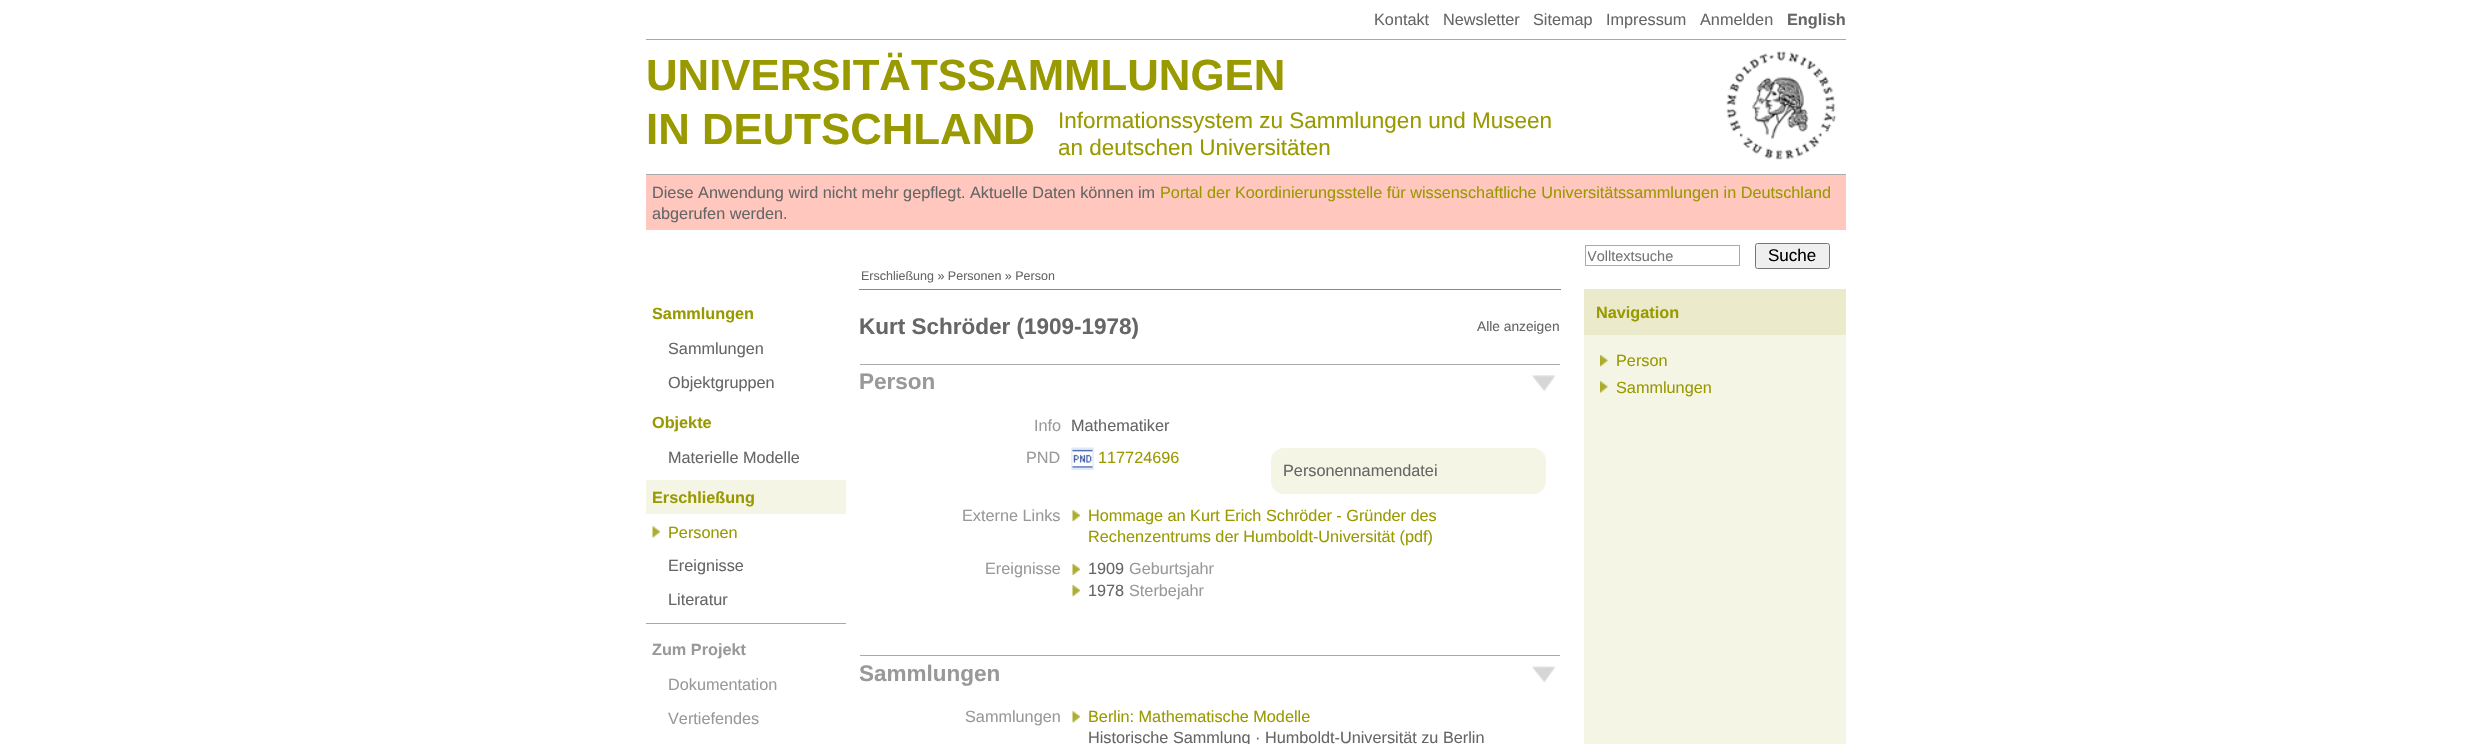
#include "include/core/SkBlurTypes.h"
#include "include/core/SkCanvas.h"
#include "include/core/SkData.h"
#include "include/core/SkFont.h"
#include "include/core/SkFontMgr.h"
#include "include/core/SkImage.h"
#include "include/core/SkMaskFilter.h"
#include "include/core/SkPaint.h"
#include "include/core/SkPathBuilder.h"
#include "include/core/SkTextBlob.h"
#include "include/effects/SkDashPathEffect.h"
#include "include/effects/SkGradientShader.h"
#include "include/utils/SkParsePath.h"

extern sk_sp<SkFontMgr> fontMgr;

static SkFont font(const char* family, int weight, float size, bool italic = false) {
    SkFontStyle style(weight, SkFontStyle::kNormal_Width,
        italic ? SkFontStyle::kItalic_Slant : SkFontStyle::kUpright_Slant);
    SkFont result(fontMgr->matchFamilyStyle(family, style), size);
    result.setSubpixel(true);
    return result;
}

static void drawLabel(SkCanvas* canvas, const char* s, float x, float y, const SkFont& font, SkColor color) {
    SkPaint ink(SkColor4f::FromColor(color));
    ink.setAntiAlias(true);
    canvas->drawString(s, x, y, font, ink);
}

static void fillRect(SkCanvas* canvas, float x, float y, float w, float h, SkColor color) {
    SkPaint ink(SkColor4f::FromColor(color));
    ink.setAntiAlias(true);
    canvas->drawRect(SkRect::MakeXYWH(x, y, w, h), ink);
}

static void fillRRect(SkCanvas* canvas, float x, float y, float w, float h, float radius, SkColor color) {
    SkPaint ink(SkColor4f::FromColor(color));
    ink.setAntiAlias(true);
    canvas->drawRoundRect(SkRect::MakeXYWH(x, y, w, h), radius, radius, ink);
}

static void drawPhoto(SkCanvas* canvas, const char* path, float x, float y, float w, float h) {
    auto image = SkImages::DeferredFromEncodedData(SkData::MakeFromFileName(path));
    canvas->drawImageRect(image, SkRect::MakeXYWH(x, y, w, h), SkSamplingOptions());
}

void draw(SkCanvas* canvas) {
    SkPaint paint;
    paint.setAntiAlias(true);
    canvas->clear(0xFFFFFFFF);
    SkFont font1 = font("Liberation Sans", 400, 16.25f);
    drawLabel(canvas, "Kontakt", 1374, 25, font1, 0xFF666666);
    drawLabel(canvas, "Newsletter", 1443, 25, font1, 0xFF666666);
    drawLabel(canvas, "Sitemap", 1533, 25, font1, 0xFF666666);
    drawLabel(canvas, "Impressum", 1606, 25, font1, 0xFF666666);
    drawLabel(canvas, "Anmelden", 1700, 25, font1, 0xFF666666);
    SkFont font2 = font("Liberation Sans", 700, 16.25f);
    drawLabel(canvas, "English", 1787, 25, font2, 0xFF666666);
    fillRect(canvas, 646, 39, 1200, 1, 0xFFAAAAAA);
    fillRect(canvas, 646, 174, 1200, 1, 0xFFAAAAAA);
    SkFont font3 = font("Liberation Sans", 700, 43.75f);
    drawLabel(canvas, "UNIVERSITÄTSSAMMLUNGEN", 646, 90, font3, 0xFF999900);
    drawPhoto(canvas, "assets/img1.png", 1726, 51, 111, 109);
    drawLabel(canvas, "IN DEUTSCHLAND", 646, 144, font3, 0xFF999900);
    SkFont font4 = font("Liberation Sans", 400, 22.5f);
    drawLabel(canvas, "Informationssystem zu Sammlungen und Museen", 1058, 128, font4, 0xFF999900);
    drawLabel(canvas, "an deutschen Universitäten", 1058, 155, font4, 0xFF999900);
    fillRect(canvas, 646, 175, 1200, 55, 0xFFFFC7BD);
    drawLabel(canvas, "Diese Anwendung wird nicht mehr gepflegt. Aktuelle Daten können im", 652, 198, font1, 0xFF666666);
    drawLabel(canvas, "Portal der Koordinierungsstelle für wissenschaftliche Universitätssammlungen in Deutschland", 1160, 198, font1, 0xFF999900);
    drawLabel(canvas, "abgerufen werden.", 652, 219, font1, 0xFF666666);
    paint.setStroke(true);
    paint.setStrokeWidth(1);
    paint.setColor(0xFFAAAAAA);
    canvas->drawRect(SkRect::MakeXYWH(1585.5f, 245.5f, 154, 20), paint);
    canvas->save();
    canvas->clipRect(SkRect::MakeXYWH(1588, 248, 150, 16));
    SkFont font5 = font("Liberation Sans", 400, 14.5f);
    drawLabel(canvas, "Volltextsuche", 1587, 261, font5, 0xFF757575);
    canvas->restore();
    paint.setStroke(false);
    paint.setColor(0xFFEFEFEF);
    canvas->drawRoundRect(SkRect::MakeXYWH(1755.5f, 243.5f, 74, 25), 2, 2, paint);
    paint.setStroke(true);
    paint.setColor(0xFF767676);
    canvas->drawRoundRect(SkRect::MakeXYWH(1755.5f, 243.5f, 74, 25), 2, 2, paint);
    SkFont font6 = font("Liberation Sans", 400, 17);
    drawLabel(canvas, "Suche", 1768, 261, font6, 0xFF000000);
    SkFont font7 = font("Liberation Sans", 400, 12.5f);
    drawLabel(canvas, "Erschließung » Personen » Person", 861, 280, font7, 0xFF666666);
    drawLabel(canvas, "Sammlungen", 652, 319, font2, 0xFF999900);
    drawLabel(canvas, "Sammlungen", 668, 354, font1, 0xFF666666);
    drawLabel(canvas, "Objektgruppen", 668, 388, font1, 0xFF666666);
    drawLabel(canvas, "Objekte", 652, 428, font2, 0xFF999900);
    drawLabel(canvas, "Materielle Modelle", 668, 463, font1, 0xFF666666);
    fillRect(canvas, 646, 480, 200, 34, 0xFFF5F5E5);
    drawLabel(canvas, "Erschließung", 652, 503, font2, 0xFF999900);
    drawPhoto(canvas, "assets/img2.png", 652, 526, 8, 12);
    drawLabel(canvas, "Personen", 668, 538, font1, 0xFF999900);
    drawLabel(canvas, "Ereignisse", 668, 571, font1, 0xFF666666);
    drawLabel(canvas, "Literatur", 668, 605, font1, 0xFF666666);
    fillRect(canvas, 646, 623, 200, 1, 0xFFAAAAAA);
    drawLabel(canvas, "Zum Projekt", 652, 655, font2, 0xFF999999);
    drawLabel(canvas, "Dokumentation", 668, 690, font1, 0xFF999999);
    drawLabel(canvas, "Vertiefendes", 668, 724, font1, 0xFF999999);
    fillRect(canvas, 859, 289, 702, 1, 0xFF999900);
    SkFont font8 = font("Liberation Sans", 700, 22.5f);
    drawLabel(canvas, "Kurt Schröder (1909-1978)", 859, 334, font8, 0xFF666666);
    SkFont font9 = font("Liberation Sans", 400, 13.75f);
    drawLabel(canvas, "Alle anzeigen", 1477, 331, font9, 0xFF666666);
    fillRect(canvas, 860, 364, 700, 1, 0xFFAAAAAA);
    drawPhoto(canvas, "assets/img3.png", 1532, 375, 23, 17);
    drawLabel(canvas, "Person", 859, 389, font8, 0xFF999999);
    drawLabel(canvas, "Info", 1034, 431, font1, 0xFF999999);
    drawLabel(canvas, "Mathematiker", 1071, 431, font1, 0xFF666666);
    drawLabel(canvas, "PND", 1026, 463, font1, 0xFF999999);
    drawPhoto(canvas, "assets/img4.png", 1071, 447, 23, 23);
    drawLabel(canvas, "117724696", 1098, 463, font1, 0xFF999900);
    fillRRect(canvas, 1271, 448, 275, 46, 13, 0xFFF5F5E5);
    drawLabel(canvas, "Personennamendatei", 1283, 476, font1, 0xFF666666);
    drawLabel(canvas, "Externe Links", 962, 521, font1, 0xFF999999);
    drawPhoto(canvas, "assets/img5.png", 1072, 510, 8, 12);
    drawLabel(canvas, "Hommage an Kurt Erich Schröder - Gründer des", 1088, 521, font1, 0xFF999900);
    drawLabel(canvas, "Rechenzentrums der Humboldt-Universität (pdf)", 1088, 542, font1, 0xFF999900);
    drawLabel(canvas, "Ereignisse", 985, 574, font1, 0xFF999999);
    drawPhoto(canvas, "assets/img6.png", 1072, 563, 8, 12);
    drawLabel(canvas, "1909", 1088, 574, font1, 0xFF666666);
    drawLabel(canvas, "Geburtsjahr", 1129, 574, font1, 0xFF999999);
    drawPhoto(canvas, "assets/img7.png", 1072, 585, 8, 12);
    drawLabel(canvas, "1978", 1088, 596, font1, 0xFF666666);
    drawLabel(canvas, "Sterbejahr", 1129, 596, font1, 0xFF999999);
    fillRect(canvas, 860, 655, 700, 1, 0xFFAAAAAA);
    drawPhoto(canvas, "assets/img8.png", 1532, 666, 23, 17);
    drawLabel(canvas, "Sammlungen", 859, 681, font8, 0xFF999999);
    drawLabel(canvas, "Sammlungen", 965, 722, font1, 0xFF999999);
    drawPhoto(canvas, "assets/img9.png", 1072, 711, 8, 12);
    drawLabel(canvas, "Berlin: Mathematische Modelle", 1088, 722, font1, 0xFF999900);
    drawLabel(canvas, "Historische Sammlung · Humboldt-Universität zu Berlin", 1088, 743, font1, 0xFF666666);
    fillRect(canvas, 1584, 335, 262, 409, 0xFFF5F5E5);
    fillRect(canvas, 1584, 289, 262, 46, 0xFFEBEBCC);
    drawLabel(canvas, "Navigation", 1596, 318, font2, 0xFF999900);
    drawPhoto(canvas, "assets/img10.png", 1600, 355, 8, 12);
    drawLabel(canvas, "Person", 1616, 366, font1, 0xFF999900);
    drawPhoto(canvas, "assets/img11.png", 1600, 381, 8, 12);
    drawLabel(canvas, "Sammlungen", 1616, 393, font1, 0xFF999900);
}
